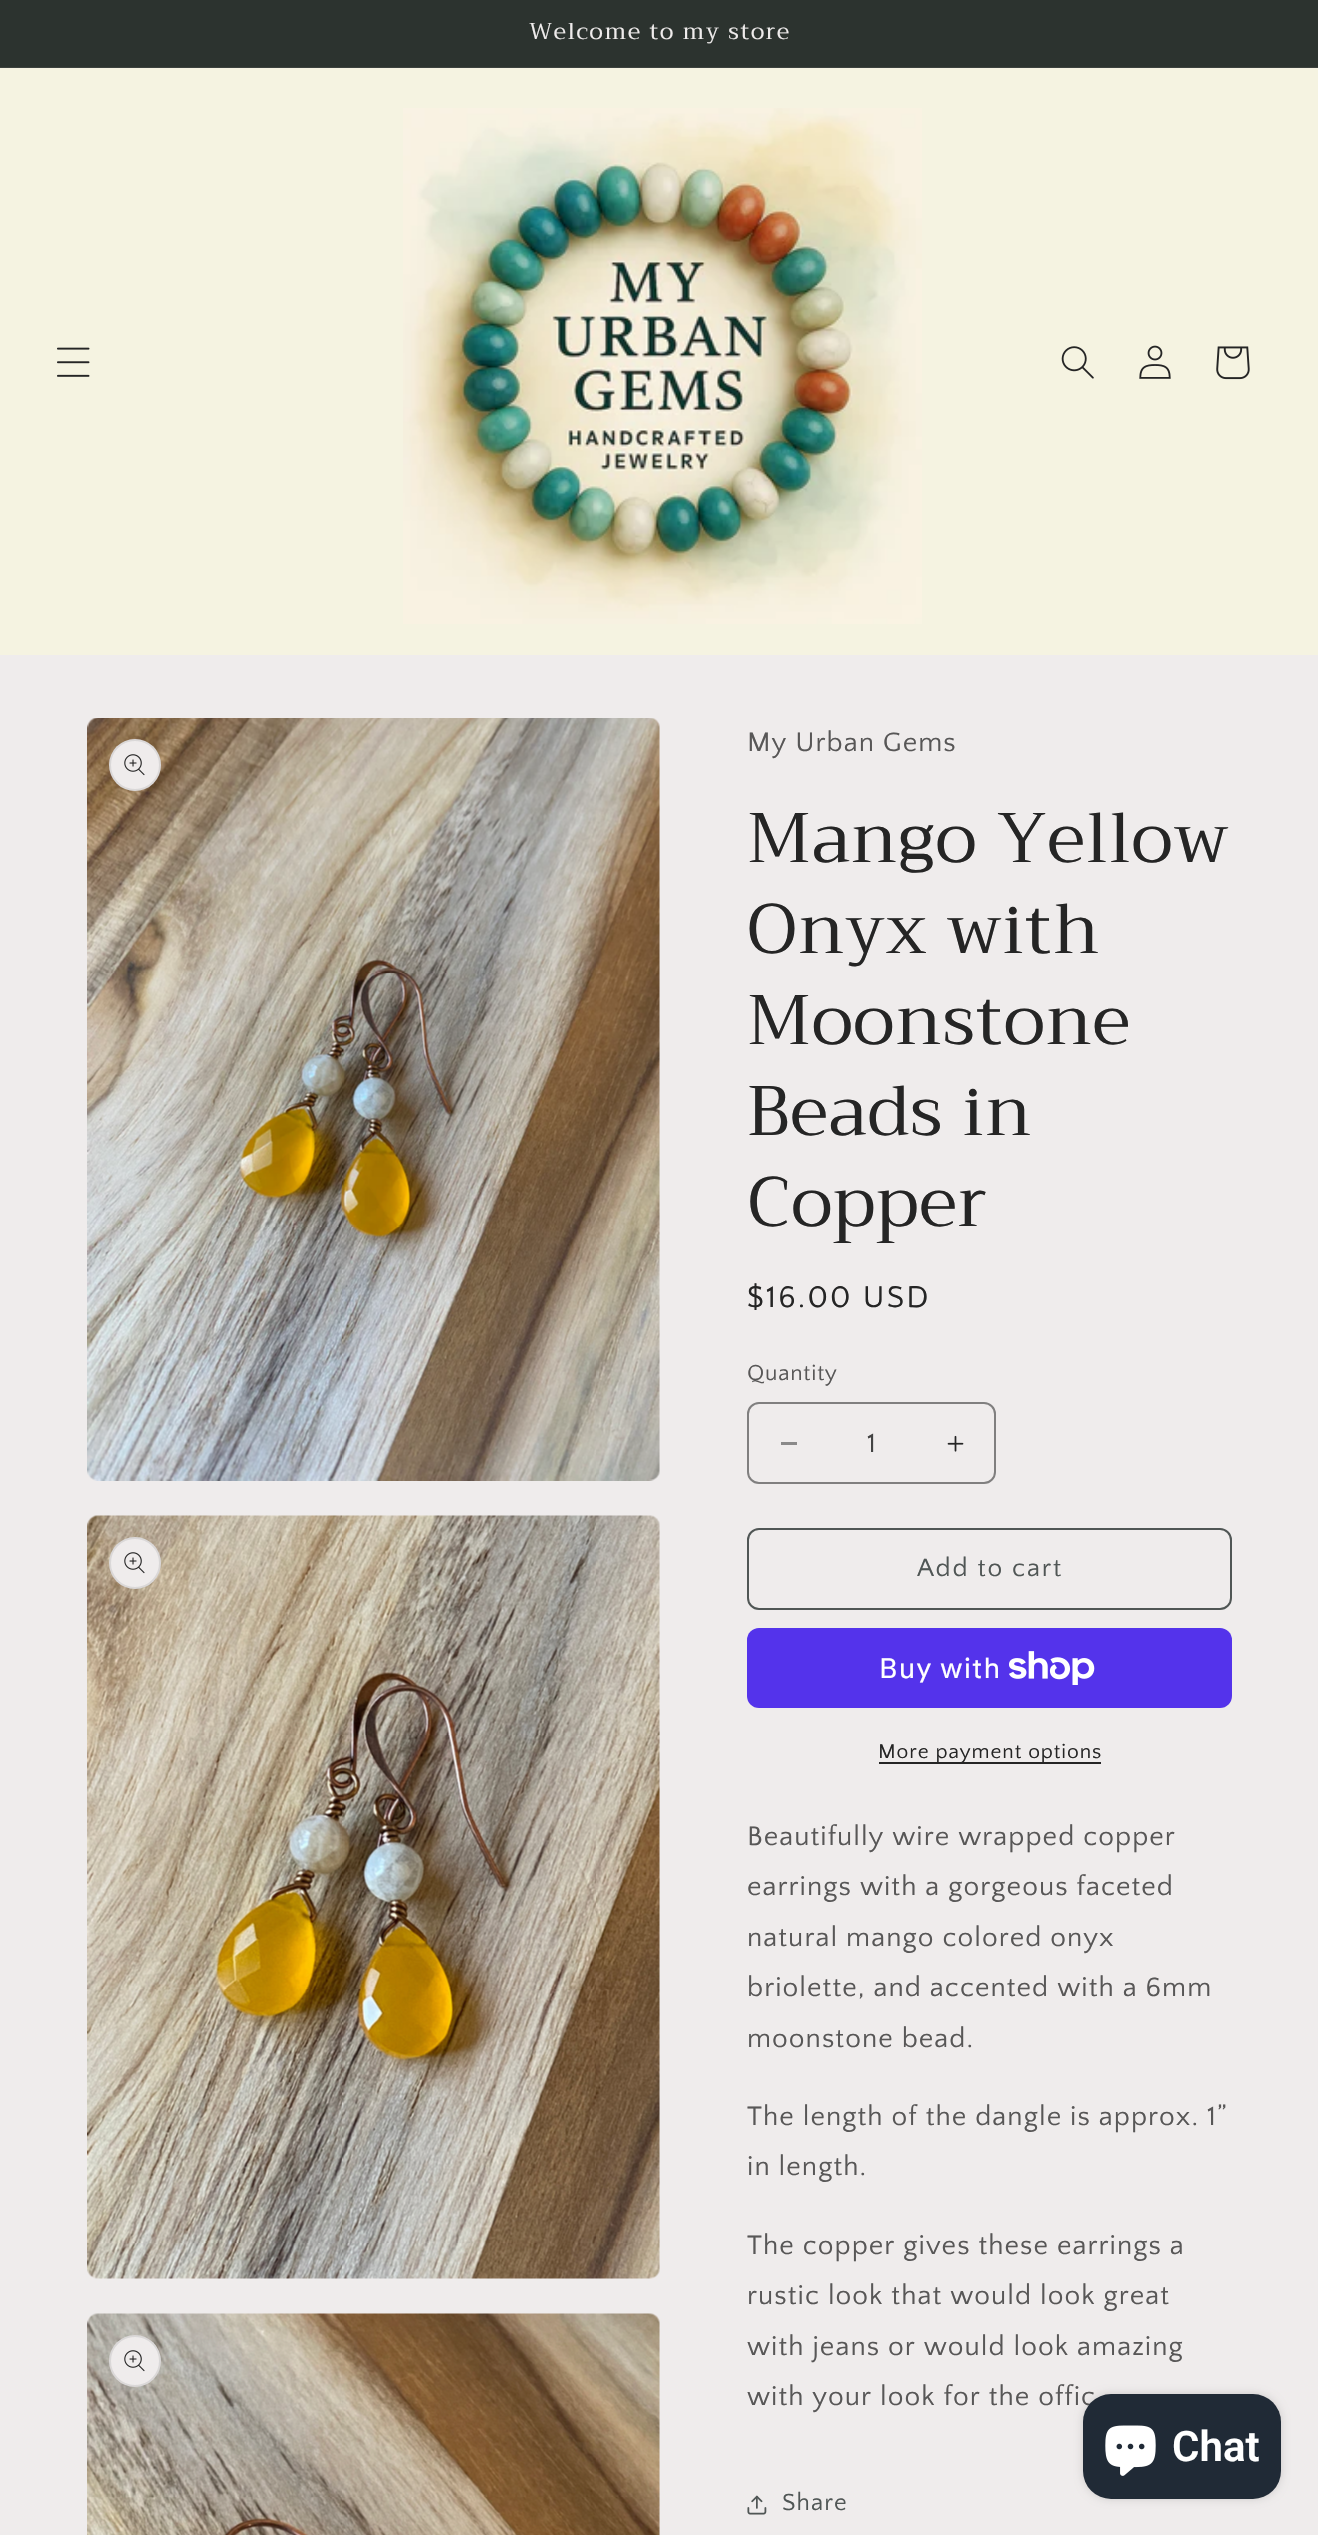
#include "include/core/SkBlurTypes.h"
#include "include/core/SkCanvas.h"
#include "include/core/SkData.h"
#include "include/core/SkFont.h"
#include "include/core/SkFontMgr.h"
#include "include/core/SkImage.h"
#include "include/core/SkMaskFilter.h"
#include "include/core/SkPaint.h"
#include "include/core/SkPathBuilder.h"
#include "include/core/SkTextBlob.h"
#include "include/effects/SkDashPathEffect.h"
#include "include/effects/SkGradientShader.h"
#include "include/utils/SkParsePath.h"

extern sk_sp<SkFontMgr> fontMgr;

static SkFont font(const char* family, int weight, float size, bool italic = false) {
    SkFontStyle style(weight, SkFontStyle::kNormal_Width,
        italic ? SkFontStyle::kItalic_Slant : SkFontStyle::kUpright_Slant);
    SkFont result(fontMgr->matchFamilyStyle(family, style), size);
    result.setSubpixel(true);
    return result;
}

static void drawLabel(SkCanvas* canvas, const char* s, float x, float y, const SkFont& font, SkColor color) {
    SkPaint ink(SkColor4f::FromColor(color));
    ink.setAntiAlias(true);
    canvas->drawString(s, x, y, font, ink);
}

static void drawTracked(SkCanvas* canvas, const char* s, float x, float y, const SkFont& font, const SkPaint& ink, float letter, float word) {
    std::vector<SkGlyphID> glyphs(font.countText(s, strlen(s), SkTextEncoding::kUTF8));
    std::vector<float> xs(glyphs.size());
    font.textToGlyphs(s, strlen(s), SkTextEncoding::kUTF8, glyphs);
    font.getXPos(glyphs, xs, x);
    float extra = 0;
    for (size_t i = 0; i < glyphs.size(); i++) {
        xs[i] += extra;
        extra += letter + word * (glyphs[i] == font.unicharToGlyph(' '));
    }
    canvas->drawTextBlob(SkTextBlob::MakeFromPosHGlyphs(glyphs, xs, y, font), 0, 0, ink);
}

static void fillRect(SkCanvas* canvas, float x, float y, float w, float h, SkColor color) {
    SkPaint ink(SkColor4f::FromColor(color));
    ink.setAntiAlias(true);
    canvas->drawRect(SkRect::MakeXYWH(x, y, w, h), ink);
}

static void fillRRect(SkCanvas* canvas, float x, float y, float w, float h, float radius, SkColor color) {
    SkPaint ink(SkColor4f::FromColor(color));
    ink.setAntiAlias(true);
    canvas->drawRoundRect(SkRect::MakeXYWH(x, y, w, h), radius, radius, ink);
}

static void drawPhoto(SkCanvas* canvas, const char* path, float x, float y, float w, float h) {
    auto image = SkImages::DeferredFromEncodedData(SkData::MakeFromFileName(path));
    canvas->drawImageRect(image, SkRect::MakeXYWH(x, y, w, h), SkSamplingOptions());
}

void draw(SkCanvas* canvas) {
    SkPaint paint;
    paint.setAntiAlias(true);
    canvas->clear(0xFFEFECEC);
    fillRect(canvas, 0, 0, 1318, 67, 0xFF2C332F);
    fillRect(canvas, 0, 67, 1318, 1, 0xFF3C423E);
    SkFont font1 = font("Trirong", 400, 22.75f);
    paint.setColor(0xFFEFECEC);
    drawTracked(canvas, "Welcome to my store", 529, 39, font1, paint, 1.75f, 0);
    fillRect(canvas, 0, 69, 1318, 586, 0xFFF5F3E1);
    fillRect(canvas, 0, 68, 1318, 1, 0xFFF5F2E2);
    drawPhoto(canvas, "assets/img1.png", 57, 347, 33, 30);
    drawPhoto(canvas, "assets/img2.png", 403, 108, 519, 516);
    drawPhoto(canvas, "assets/img3.png", 1061, 346, 33, 33);
    drawPhoto(canvas, "assets/img4.png", 1139, 345, 32, 34);
    drawPhoto(canvas, "assets/img5.png", 1216, 346, 34, 34);
    drawPhoto(canvas, "assets/img6.png", 87, 718, 573, 763);
    canvas->drawCircle(135, 765, 26, paint);
    paint.setStroke(true);
    paint.setStrokeWidth(2);
    paint.setColor(0x1A252525);
    canvas->drawCircle(135, 765, 25, paint);
    drawPhoto(canvas, "assets/img7.png", 124, 754, 21, 22);
    drawPhoto(canvas, "assets/img8.png", 87, 1515, 573, 764);
    paint.setStroke(false);
    paint.setColor(0xFFEFECEC);
    canvas->drawCircle(135, 1563, 26, paint);
    paint.setStroke(true);
    paint.setColor(0x1A252525);
    canvas->drawCircle(135, 1563, 25, paint);
    drawPhoto(canvas, "assets/img7.png", 124, 1552, 21, 22);
    drawPhoto(canvas, "assets/img9.png", 87, 2313, 573, 222);
    paint.setStroke(false);
    paint.setColor(0xFFEFECEC);
    canvas->drawCircle(135, 2361, 26, paint);
    paint.setStroke(true);
    paint.setColor(0x1A252525);
    canvas->drawCircle(135, 2361, 25, paint);
    drawPhoto(canvas, "assets/img7.png", 124, 2350, 21, 22);
    SkFont font2 = font("Quattrocento Sans", 400, 28);
    paint.setStroke(false);
    paint.setColor(0xFF585757);
    drawTracked(canvas, "My Urban Gems", 747, 751, font2, paint, 1.05f, 0);
    SkFont font3 = font("Trirong", 400, 70);
    paint.setColor(0xFF252525);
    drawTracked(canvas, "Mango Yellow", 747, 862, font3, paint, 1.05f, 0);
    drawTracked(canvas, "Onyx with", 747, 953, font3, paint, 1.05f, 0);
    drawTracked(canvas, "Moonstone", 747, 1044, font3, paint, 1.05f, 0);
    drawTracked(canvas, "Beads in", 747, 1135, font3, paint, 1.05f, 0);
    drawTracked(canvas, "Copper", 747, 1226, font3, paint, 1.05f, 0);
    SkFont font4 = font("Quattrocento Sans", 400, 31.5f);
    drawTracked(canvas, "$16.00 USD", 747, 1307, font4, paint, 2.25f, 0);
    SkFont font5 = font("Quattrocento Sans", 400, 22.75f);
    paint.setColor(0xFF585757);
    drawTracked(canvas, "Quantity", 747, 1380, font5, paint, 0.75f, 0);
    fillRect(canvas, 781, 1442, 16, 3, 0xFF8A8989);
    drawPhoto(canvas, "assets/img10.png", 947, 1435, 17, 17);
    paint.setStroke(true);
    paint.setColor(0xFF807F7F);
    canvas->drawRoundRect(SkRect::MakeXYWH(748, 1403, 247, 80), 11, 11, paint);
    drawLabel(canvas, "1", 867, 1452, font2, 0xFF434343);
    paint.setColor(0xFF505655);
    canvas->drawRoundRect(SkRect::MakeXYWH(748, 1529, 483, 80), 11, 11, paint);
    SkFont font6 = font("Quattrocento Sans", 400, 26.25f);
    paint.setStroke(false);
    drawTracked(canvas, "Add to cart", 917, 1576, font6, paint, 1.75f, 0);
    fillRRect(canvas, 747, 1628, 485, 80, 12, 0xFF5433EB);
    SkFont font7 = font("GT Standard", 400, 28);
    paint.setColor(0xFFFFFFFF);
    drawTracked(canvas, "Buy with", 879, 1678, font7, paint, 1.05f, 0);
    drawPhoto(canvas, "assets/img11.png", 1009, 1651, 86, 34);
    fillRect(canvas, 879, 1762, 222, 2, 0xFF252525);
    SkFont font8 = font("Quattrocento Sans", 400, 21);
    paint.setColor(0xFF252525);
    drawTracked(canvas, "More payment options", 878, 1758, font8, paint, 0.9f, 0);
    paint.setColor(0xFF585757);
    drawTracked(canvas, "Beautifully wire wrapped copper", 747, 1845, font2, paint, 1.05f, 0);
    drawTracked(canvas, "earrings with a gorgeous faceted", 747, 1895, font2, paint, 1.05f, 0);
    drawTracked(canvas, "natural mango colored onyx", 747, 1946, font2, paint, 1.05f, 0);
    drawTracked(canvas, "briolette, and accented with a 6mm", 747, 1996, font2, paint, 1.05f, 0);
    drawTracked(canvas, "moonstone bead.", 747, 2047, font2, paint, 1.05f, 0);
    drawTracked(canvas, "The length of the dangle is approx. 1”", 747, 2125, font2, paint, 1.05f, 0);
    drawTracked(canvas, "in length.", 747, 2175, font2, paint, 1.05f, 0);
    drawTracked(canvas, "The copper gives these earrings a", 747, 2254, font2, paint, 1.05f, 0);
    drawTracked(canvas, "rustic look that would look great", 747, 2304, font2, paint, 1.05f, 0);
    drawTracked(canvas, "with jeans or would look amazing", 747, 2355, font2, paint, 1.05f, 0);
    drawTracked(canvas, "with your look for the offic", 747, 2405, font2, paint, 1.05f, 0);
    drawPhoto(canvas, "assets/img12.png", 747, 2495, 20, 20);
    SkFont font9 = font("Quattrocento Sans", 400, 24.5f);
    paint.setColor(0xFF505655);
    drawTracked(canvas, "Share", 782, 2510, font9, paint, 1.05f, 0);
    paint.setColor(0x26000000);
    paint.setMaskFilter(SkMaskFilter::MakeBlur(kNormal_SkBlurStyle, 4.5f));
    canvas->drawRoundRect(SkRect::MakeXYWH(1083, 2394, 198, 105), 28, 28, paint);
    paint.setMaskFilter(nullptr);
    fillRRect(canvas, 1083, 2394, 198, 105, 28, 0xFF202A36);
    drawPhoto(canvas, "assets/img13.png", 1105, 2425, 51, 51);
    SkFont font10 = font("Roboto", 600, 42);
    drawLabel(canvas, "Chat", 1172, 2461, font10, 0xFFFFFFFF);
}
